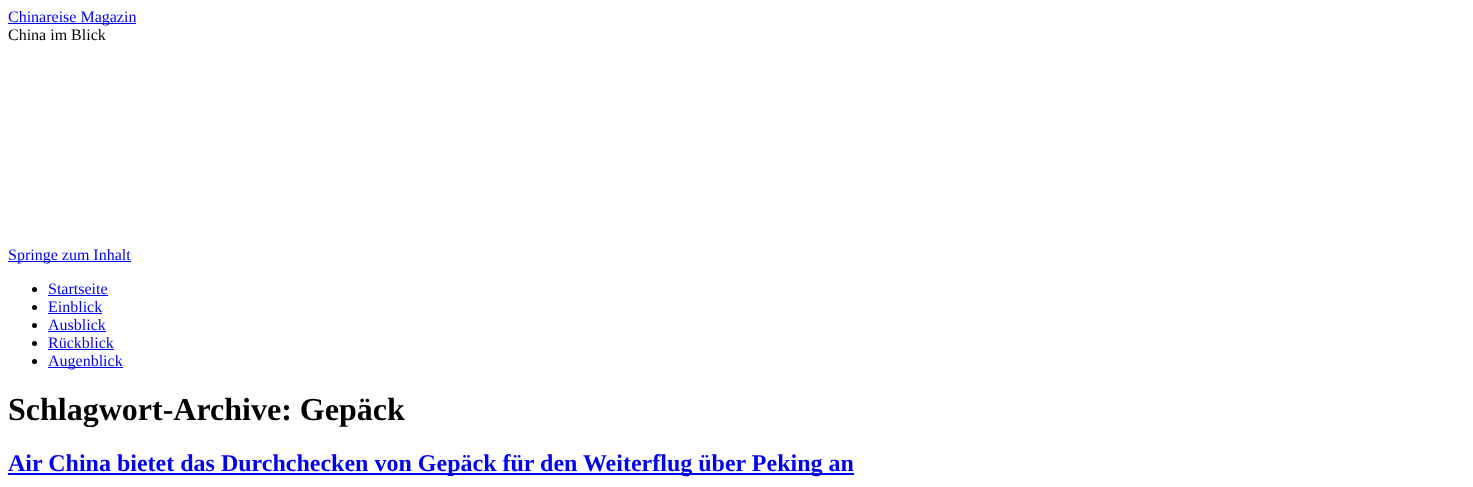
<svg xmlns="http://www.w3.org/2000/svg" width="1473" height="487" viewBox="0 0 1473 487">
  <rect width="100%" height="100%" fill="#ffffff"/>
  <rect x="8" y="23" width="128" height="1" fill="#0000ee"/>
  <text x="8" y="22" font-family="Liberation Serif" font-size="16" fill="#0000ee">Chinareise Magazin</text>
  <text x="8" y="40" font-family="Liberation Serif" font-size="16" fill="#000000">China im Blick</text>
  <rect x="8" y="261" width="123" height="1" fill="#0000ee"/>
  <text x="8" y="260" font-family="Liberation Serif" font-size="16" fill="#0000ee">Springe zum Inhalt</text>
  <circle cx="34.5" cy="289.5" r="2.5" fill="#000000"/>
  <text x="48" y="294" font-family="Liberation Serif" font-size="16" fill="#0000ee">Startseite</text>
  <rect x="48" y="295" width="60" height="1" fill="#0000ee"/>
  <circle cx="34.5" cy="307.5" r="2.5" fill="#000000"/>
  <text x="48" y="312" font-family="Liberation Serif" font-size="16" fill="#0000ee">Einblick</text>
  <rect x="48" y="313" width="54" height="1" fill="#0000ee"/>
  <circle cx="34.5" cy="325.5" r="2.5" fill="#000000"/>
  <text x="48" y="330" font-family="Liberation Serif" font-size="16" fill="#0000ee">Ausblick</text>
  <rect x="48" y="331" width="58" height="1" fill="#0000ee"/>
  <circle cx="34.5" cy="343.5" r="2.5" fill="#000000"/>
  <text x="48" y="348" font-family="Liberation Serif" font-size="16" fill="#0000ee">Rückblick</text>
  <rect x="48" y="349" width="66" height="1" fill="#0000ee"/>
  <circle cx="34.5" cy="361.5" r="2.5" fill="#000000"/>
  <rect x="48" y="367" width="75" height="1" fill="#0000ee"/>
  <text x="48" y="366" font-family="Liberation Serif" font-size="16" fill="#0000ee">Augenblick</text>
  <text x="8" y="420" font-family="Liberation Serif" font-size="32" font-weight="bold" fill="#000000">Schlagwort-Archive: Gepäck</text>
  <rect x="8" y="473" width="846" height="2" fill="#0000ee"/>
  <text x="8" y="471" font-family="Liberation Serif" font-size="24" font-weight="bold" fill="#0000ee">Air China bietet das Durchchecken von Gepäck für den Weiterflug über Peking an</text>
</svg>
